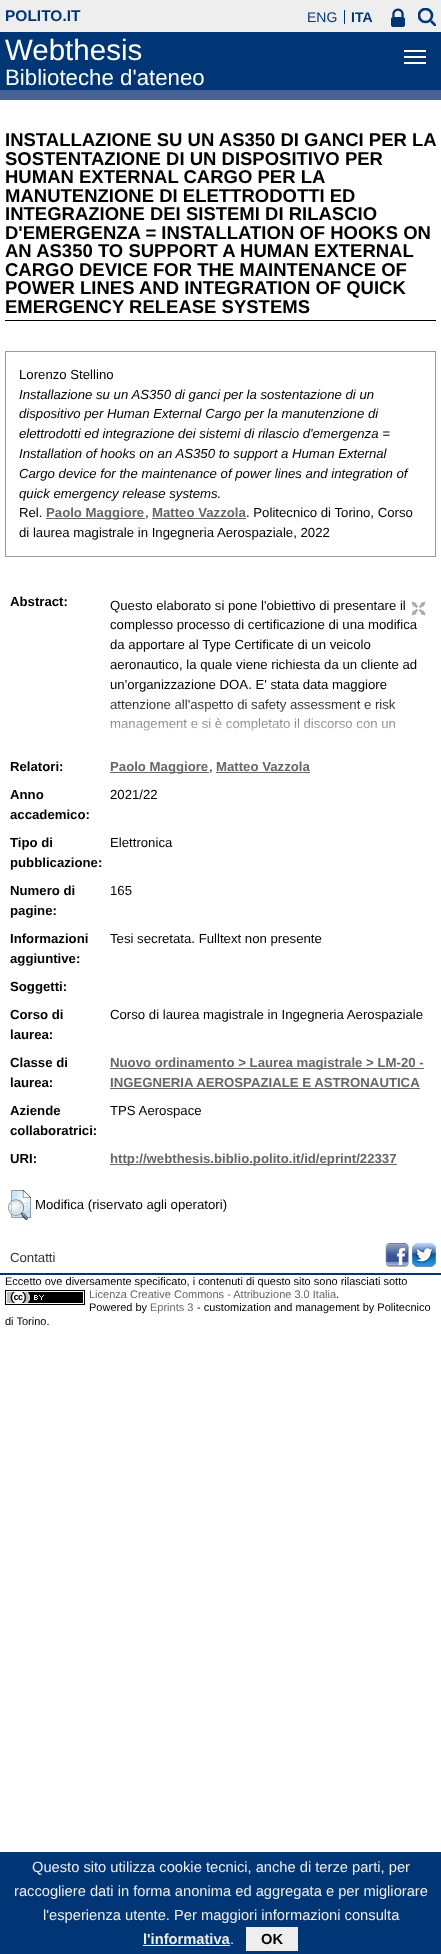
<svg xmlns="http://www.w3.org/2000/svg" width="441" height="1954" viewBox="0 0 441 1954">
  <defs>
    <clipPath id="clip1"><rect x="418" y="8" width="18" height="18"/></clipPath>
  </defs>
  <rect width="100%" height="100%" fill="#ffffff"/>
  <rect x="0" y="0" width="441" height="32" fill="#eeeeee"/>
  <text x="5" y="21" font-family="Liberation Sans" font-size="15.5" font-weight="bold" fill="#003576">POLITO.IT</text>
  <rect x="344" y="10" width="1" height="14" fill="#003576"/>
  <text x="307" y="22" font-family="Liberation Sans" font-size="14" fill="#003576">ENG</text>
  <text x="351" y="22" font-family="Liberation Sans" font-size="14" font-weight="bold" fill="#003576">ITA</text>
  <image x="391" y="8" width="14" height="19" href="img1.png"/>
  <g clip-path="url(#clip1)">
    <circle cx="425.5" cy="15.5" r="6.5" fill="none" stroke="#003576" stroke-width="2.6"/>
    <path d="M431 21L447.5 37.5" fill="none" stroke="#003576" stroke-width="2.6"/>
  </g>
  <rect x="0" y="32" width="441" height="58" fill="#003576"/>
  <text x="5" y="60" font-family="Liberation Sans" font-size="29.5" fill="#ffffff">Webthesis</text>
  <text x="5" y="85" font-family="Liberation Sans" font-size="22.25" fill="#ffffff">Biblioteche d'ateneo</text>
  <rect x="404" y="50" width="22" height="2" fill="#ffffff"/>
  <rect x="404" y="56" width="22" height="2" fill="#ffffff"/>
  <rect x="404" y="62" width="22" height="2" fill="#ffffff"/>
  <rect x="0" y="90" width="441" height="10" fill="#486293"/>
  <rect x="5" y="320" width="431" height="1" fill="#000000"/>
  <text x="5" y="146" font-family="Liberation Sans" font-size="18.5" font-weight="bold" fill="#000000">INSTALLAZIONE SU UN AS350 DI GANCI PER LA</text>
  <text x="5" y="165" font-family="Liberation Sans" font-size="18.5" font-weight="bold" fill="#000000">SOSTENTAZIONE DI UN DISPOSITIVO PER</text>
  <text x="5" y="183" font-family="Liberation Sans" font-size="18.5" font-weight="bold" fill="#000000">HUMAN EXTERNAL CARGO PER LA</text>
  <text x="5" y="202" font-family="Liberation Sans" font-size="18.5" font-weight="bold" fill="#000000">MANUTENZIONE DI ELETTRODOTTI ED</text>
  <text x="5" y="220" font-family="Liberation Sans" font-size="18.5" font-weight="bold" fill="#000000">INTEGRAZIONE DEI SISTEMI DI RILASCIO</text>
  <text x="5" y="239" font-family="Liberation Sans" font-size="18.5" font-weight="bold" fill="#000000">D'EMERGENZA = INSTALLATION OF HOOKS ON</text>
  <text x="5" y="257" font-family="Liberation Sans" font-size="18.5" font-weight="bold" fill="#000000">AN AS350 TO SUPPORT A HUMAN EXTERNAL</text>
  <text x="5" y="276" font-family="Liberation Sans" font-size="18.5" font-weight="bold" fill="#000000">CARGO DEVICE FOR THE MAINTENANCE OF</text>
  <text x="5" y="294" font-family="Liberation Sans" font-size="18.5" font-weight="bold" fill="#000000">POWER LINES AND INTEGRATION OF QUICK</text>
  <text x="5" y="313" font-family="Liberation Sans" font-size="18.5" font-weight="bold" fill="#000000">EMERGENCY RELEASE SYSTEMS</text>
  <rect x="5.5" y="351.5" width="430" height="205" fill="none" stroke="#999999"/>
  <text x="19" y="379" font-family="Liberation Sans" font-size="13.2" fill="#000000">Lorenzo Stellino</text>
  <text x="19" y="399" font-family="Liberation Sans" font-size="13.2" font-style="italic" fill="#000000">Installazione su un AS350 di ganci per la sostentazione di un</text>
  <text x="19" y="418" font-family="Liberation Sans" font-size="13.2" font-style="italic" fill="#000000">dispositivo per Human External Cargo per la manutenzione di</text>
  <text x="19" y="438" font-family="Liberation Sans" font-size="13.2" font-style="italic" fill="#000000">elettrodotti ed integrazione dei sistemi di rilascio d'emergenza =</text>
  <text x="19" y="458" font-family="Liberation Sans" font-size="13.2" font-style="italic" fill="#000000">Installation of hooks on an AS350 to support a Human External</text>
  <text x="19" y="478" font-family="Liberation Sans" font-size="13.2" font-style="italic" fill="#000000">Cargo device for the maintenance of power lines and integration of</text>
  <text x="19" y="498" font-family="Liberation Sans" font-size="13.2" font-style="italic" fill="#000000">quick emergency release systems.</text>
  <text x="19" y="517" font-family="Liberation Sans" font-size="13.2" fill="#000000">Rel.</text>
  <rect x="46" y="518" width="99" height="1" fill="#666666"/>
  <text x="46" y="517" font-family="Liberation Sans" font-size="13.2" font-weight="bold" fill="#666666">Paolo Maggiore</text>
  <text x="145" y="517" font-family="Liberation Sans" font-size="13.2" fill="#000000">,</text>
  <text x="152" y="517" font-family="Liberation Sans" font-size="13.2" font-weight="bold" fill="#666666">Matteo Vazzola</text>
  <rect x="152" y="518" width="94" height="1" fill="#666666"/>
  <text x="246" y="517" font-family="Liberation Sans" font-size="13.2" fill="#000000">. Politecnico di Torino, Corso</text>
  <text x="19" y="537" font-family="Liberation Sans" font-size="13.2" fill="#000000">di laurea magistrale in Ingegneria Aerospaziale, 2022</text>
  <text x="10" y="606" font-family="Liberation Sans" font-size="13.2" font-weight="bold" fill="#000000">Abstract:</text>
  <text x="110" y="610" font-family="Liberation Sans" font-size="13.2" fill="#000000">Questo elaborato si pone l'obiettivo di presentare il</text>
  <text x="110" y="629" font-family="Liberation Sans" font-size="13.2" fill="#000000">complesso processo di certificazione di una modifica</text>
  <text x="110" y="649" font-family="Liberation Sans" font-size="13.2" fill="#000000">da apportare al Type Certificate di un veicolo</text>
  <text x="110" y="669" font-family="Liberation Sans" font-size="13.2" fill="#000000">aeronautico, la quale viene richiesta da un cliente ad</text>
  <text x="110" y="689" font-family="Liberation Sans" font-size="13.2" fill="#000000">un'organizzazione DOA. E' stata data maggiore</text>
  <text x="110" y="709" font-family="Liberation Sans" font-size="13.2" fill="#000000">attenzione all'aspetto di safety assessment e risk</text>
  <text x="110" y="728" font-family="Liberation Sans" font-size="13.2" fill="#000000">management e si è completato il discorso con un</text>
  <image x="411" y="601" width="15" height="15" href="img2.png"/>
  <image x="111" y="699" width="314" height="47" href="img3.png"/>
  <text x="10" y="771" font-family="Liberation Sans" font-size="13.2" font-weight="bold" fill="#000000">Relatori:</text>
  <rect x="110" y="772" width="99" height="1" fill="#666666"/>
  <text x="110" y="771" font-family="Liberation Sans" font-size="13.2" font-weight="bold" fill="#666666">Paolo Maggiore</text>
  <text x="209" y="771" font-family="Liberation Sans" font-size="13.2" fill="#000000">,</text>
  <text x="216" y="771" font-family="Liberation Sans" font-size="13.2" font-weight="bold" fill="#666666">Matteo Vazzola</text>
  <rect x="216" y="772" width="94" height="1" fill="#666666"/>
  <text x="10" y="799" font-family="Liberation Sans" font-size="13.2" font-weight="bold" fill="#000000">Anno</text>
  <text x="10" y="819" font-family="Liberation Sans" font-size="13.2" font-weight="bold" fill="#000000">accademico:</text>
  <text x="110" y="799" font-family="Liberation Sans" font-size="13.2" fill="#000000">2021/22</text>
  <text x="10" y="847" font-family="Liberation Sans" font-size="13.2" font-weight="bold" fill="#000000">Tipo di</text>
  <text x="10" y="867" font-family="Liberation Sans" font-size="13.2" font-weight="bold" fill="#000000">pubblicazione:</text>
  <text x="110" y="847" font-family="Liberation Sans" font-size="13.2" fill="#000000">Elettronica</text>
  <text x="10" y="895" font-family="Liberation Sans" font-size="13.2" font-weight="bold" fill="#000000">Numero di</text>
  <text x="10" y="915" font-family="Liberation Sans" font-size="13.2" font-weight="bold" fill="#000000">pagine:</text>
  <text x="110" y="895" font-family="Liberation Sans" font-size="13.2" fill="#000000">165</text>
  <text x="10" y="943" font-family="Liberation Sans" font-size="13.2" font-weight="bold" fill="#000000">Informazioni</text>
  <text x="10" y="963" font-family="Liberation Sans" font-size="13.2" font-weight="bold" fill="#000000">aggiuntive:</text>
  <text x="110" y="943" font-family="Liberation Sans" font-size="13.2" fill="#000000">Tesi secretata. Fulltext non presente</text>
  <text x="10" y="991" font-family="Liberation Sans" font-size="13.2" font-weight="bold" fill="#000000">Soggetti:</text>
  <text x="10" y="1019" font-family="Liberation Sans" font-size="13.2" font-weight="bold" fill="#000000">Corso di</text>
  <text x="10" y="1039" font-family="Liberation Sans" font-size="13.2" font-weight="bold" fill="#000000">laurea:</text>
  <text x="110" y="1019" font-family="Liberation Sans" font-size="13.2" fill="#000000">Corso di laurea magistrale in Ingegneria Aerospaziale</text>
  <text x="10" y="1067" font-family="Liberation Sans" font-size="13.2" font-weight="bold" fill="#000000">Classe di</text>
  <text x="10" y="1087" font-family="Liberation Sans" font-size="13.2" font-weight="bold" fill="#000000">laurea:</text>
  <rect x="110" y="1068" width="314" height="1" fill="#666666"/>
  <text x="110" y="1067" font-family="Liberation Sans" font-size="13.2" font-weight="bold" fill="#666666">Nuovo ordinamento &gt; Laurea magistrale &gt; LM-20 -</text>
  <text x="110" y="1087" font-family="Liberation Sans" font-size="13.2" font-weight="bold" fill="#666666">INGEGNERIA AEROSPAZIALE E ASTRONAUTICA</text>
  <rect x="110" y="1088" width="310" height="1" fill="#666666"/>
  <text x="10" y="1115" font-family="Liberation Sans" font-size="13.2" font-weight="bold" fill="#000000">Aziende</text>
  <text x="10" y="1135" font-family="Liberation Sans" font-size="13.2" font-weight="bold" fill="#000000">collaboratrici:</text>
  <text x="110" y="1115" font-family="Liberation Sans" font-size="13.2" fill="#000000">TPS Aerospace</text>
  <text x="10" y="1163" font-family="Liberation Sans" font-size="13.2" font-weight="bold" fill="#000000">URI:</text>
  <rect x="110" y="1164" width="287" height="1" fill="#666666"/>
  <text x="110" y="1163" font-family="Liberation Sans" font-size="13.2" font-weight="bold" fill="#666666">http://webthesis.biblio.polito.it/id/eprint/22337</text>
  <image x="8" y="1190" width="23" height="30" href="img4.png"/>
  <text x="35" y="1209" font-family="Liberation Sans" font-size="13.2" fill="#000000">Modifica (riservato agli operatori)</text>
  <text x="10" y="1262" font-family="Liberation Sans" font-size="13.2" fill="#333333">Contatti</text>
  <image x="385" y="1243" width="24" height="24" href="img5.png"/>
  <image x="412" y="1243" width="24" height="24" href="img6.png"/>
  <rect x="0" y="1273" width="441" height="2" fill="#003576"/>
  <text x="5" y="1285" font-family="Liberation Sans" font-size="11" fill="#000000">Eccetto ove diversamente specificato, i contenuti di questo sito sono rilasciati sotto</text>
  <image x="5" y="1290" width="80" height="15" href="img7.png"/>
  <text x="89" y="1298" font-family="Liberation Sans" font-size="11" fill="#666666">Licenza Creative Commons - Attribuzione 3.0 Italia</text>
  <text x="336" y="1298" font-family="Liberation Sans" font-size="11" fill="#000000">.</text>
  <text x="89" y="1311" font-family="Liberation Sans" font-size="11" fill="#000000">Powered by</text>
  <text x="150" y="1311" font-family="Liberation Sans" font-size="11" fill="#666666">Eprints 3</text>
  <text x="197" y="1311" font-family="Liberation Sans" font-size="11" fill="#000000">- customization and management by Politecnico</text>
  <text x="5" y="1325" font-family="Liberation Sans" font-size="11" fill="#000000">di Torino.</text>
  <rect x="0" y="1852" width="441" height="102" fill="#003576"/>
  <text x="32" y="1872" font-family="Liberation Sans" font-size="14.7" fill="#eeeeee">Questo sito utilizza cookie tecnici, anche di terze parti, per</text>
  <text x="14" y="1896" font-family="Liberation Sans" font-size="14.7" fill="#eeeeee">raccogliere dati in forma anonima ed aggregata e per migliorare</text>
  <text x="43" y="1920" font-family="Liberation Sans" font-size="14.7" fill="#eeeeee">l'esperienza utente. Per maggiori informazioni consulta</text>
  <text x="143" y="1944" font-family="Liberation Sans" font-size="14.7" font-weight="bold" fill="#eeeeee">l'informativa</text>
  <rect x="143" y="1945" width="87" height="1" fill="#eeeeee"/>
  <text x="230" y="1944" font-family="Liberation Sans" font-size="14.7" fill="#eeeeee">.</text>
  <rect x="246" y="1927" width="52" height="24" fill="#eeeeee"/>
  <text x="261" y="1944" font-family="Liberation Sans" font-size="14.7" font-weight="bold" fill="#000000">OK</text>
</svg>
